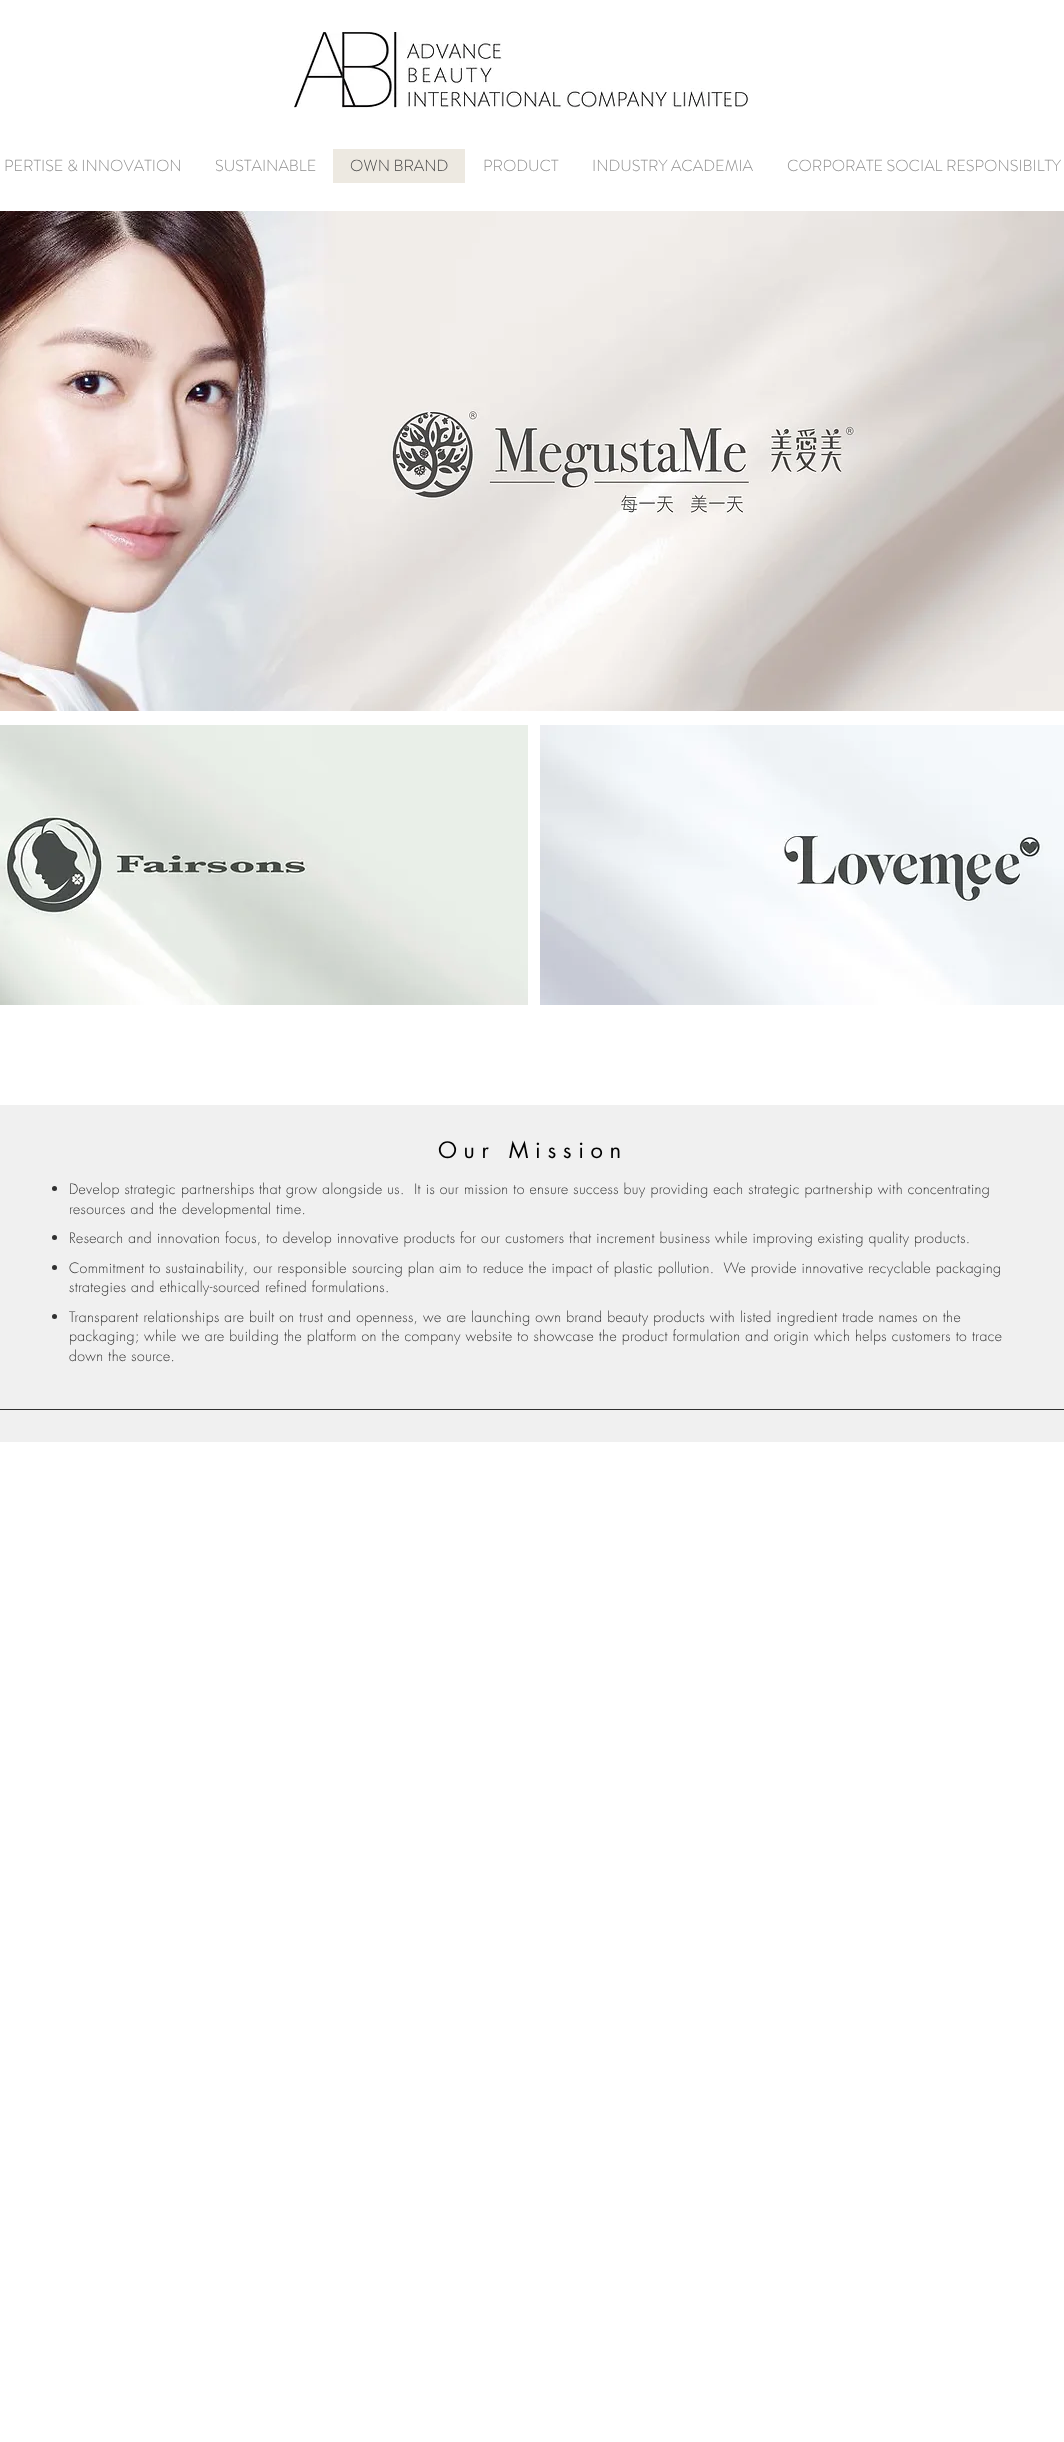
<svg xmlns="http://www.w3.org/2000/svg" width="1064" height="2442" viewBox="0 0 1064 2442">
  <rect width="100%" height="100%" fill="#ffffff"/>
  <image x="294" y="32" width="456" height="76" href="img1.png"/>
  <text x="4" y="171" font-family="'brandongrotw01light'" font-size="16" font-weight="300" fill="#909090">PERTISE &amp; INNOVATION</text>
  <text x="215" y="171" font-family="'brandongrotw01light'" font-size="16" font-weight="300" fill="#909090">SUSTAINABLE</text>
  <rect x="333" y="149" width="132" height="34" fill="#ede9e1"/>
  <text x="350" y="171" font-family="'brandongrotw01light'" font-size="16" font-weight="300" fill="#444444">OWN BRAND</text>
  <text x="483" y="171" font-family="'brandongrotw01light'" font-size="16" font-weight="300" fill="#909090">PRODUCT</text>
  <text x="592" y="171" font-family="'brandongrotw01light'" font-size="16" font-weight="300" fill="#909090">INDUSTRY ACADEMIA</text>
  <text x="787" y="171" font-family="'brandongrotw01light'" font-size="16" font-weight="300" fill="#909090">CORPORATE SOCIAL RESPONSIBILTY</text>
  <image x="0" y="211" width="1064" height="500" href="img2.png"/>
  <image x="0" y="725" width="528" height="280" href="img3.png"/>
  <image x="540" y="725" width="524" height="280" href="img4.png"/>
  <rect x="0" y="1105" width="1064" height="304" fill="#f0f0f0"/>
  <text x="438" y="1158" font-family="futura" font-size="22" letter-spacing="6.6" fill="#000000">Our Mission</text>
  <circle cx="54.5" cy="1188.5" r="2.5" fill="#303030"/>
  <text x="69" y="1194" font-family="futura" font-size="14" font-weight="300" letter-spacing="0.42" fill="#303030">Develop strategic</text>
  <text x="181" y="1194" font-family="futura" font-size="14" font-weight="300" letter-spacing="0.39" fill="#303030">partnerships</text>
  <text x="259" y="1194" font-family="futura" font-size="14" font-weight="300" letter-spacing="0.42" fill="#303030" xml:space="preserve">that grow alongside us.  It is our mission to ensure success buy providing each strategic partnership with concentrating</text>
  <text x="69" y="1214" font-family="futura" font-size="14" font-weight="300" letter-spacing="0.42" fill="#303030">resources and the developmental time.</text>
  <circle cx="54.5" cy="1237.5" r="2.5" fill="#303030"/>
  <text x="69" y="1243" font-family="futura" font-size="14" font-weight="300" letter-spacing="0.42" fill="#303030">Research and innovation focus, to develop innovative products for our customers that increment business while improving existing quality products.</text>
  <circle cx="54.5" cy="1267.5" r="2.5" fill="#303030"/>
  <text x="69" y="1273" font-family="futura" font-size="14" font-weight="300" letter-spacing="0.42" fill="#303030">Commitment to sustainability, our responsible</text>
  <text x="352" y="1273" font-family="futura" font-size="14" font-weight="300" letter-spacing="0.39" fill="#303030" xml:space="preserve">sourcing plan aim to reduce the impact of plastic pollution.  We provide innovative recyclable packaging</text>
  <text x="69" y="1292" font-family="futura" font-size="14" font-weight="300" letter-spacing="0.39" fill="#303030">strategies and ethically-sourced</text>
  <text x="265" y="1292" font-family="futura" font-size="14" font-weight="300" letter-spacing="0.4" fill="#303030">refined formulations.</text>
  <circle cx="54.5" cy="1316.5" r="2.5" fill="#303030"/>
  <text x="69" y="1322" font-family="futura" font-size="14" font-weight="300" letter-spacing="0.42" fill="#303030">Transparent relationships are built on trust and openness, we are launching own brand beauty products with listed ingredient trade names on the</text>
  <text x="69" y="1341" font-family="futura" font-size="14" font-weight="300" letter-spacing="0.42" fill="#303030">packaging; while we are building the platform on the company website to showcase the product formulation and origin which helps customers to trace</text>
  <text x="69" y="1361" font-family="futura" font-size="14" font-weight="300" letter-spacing="0.42" fill="#303030">down the source.</text>
  <rect x="0" y="1410" width="1064" height="32" fill="#f0f0f0"/>
  <rect x="0" y="1409" width="1064" height="1" fill="#303030"/>
</svg>
